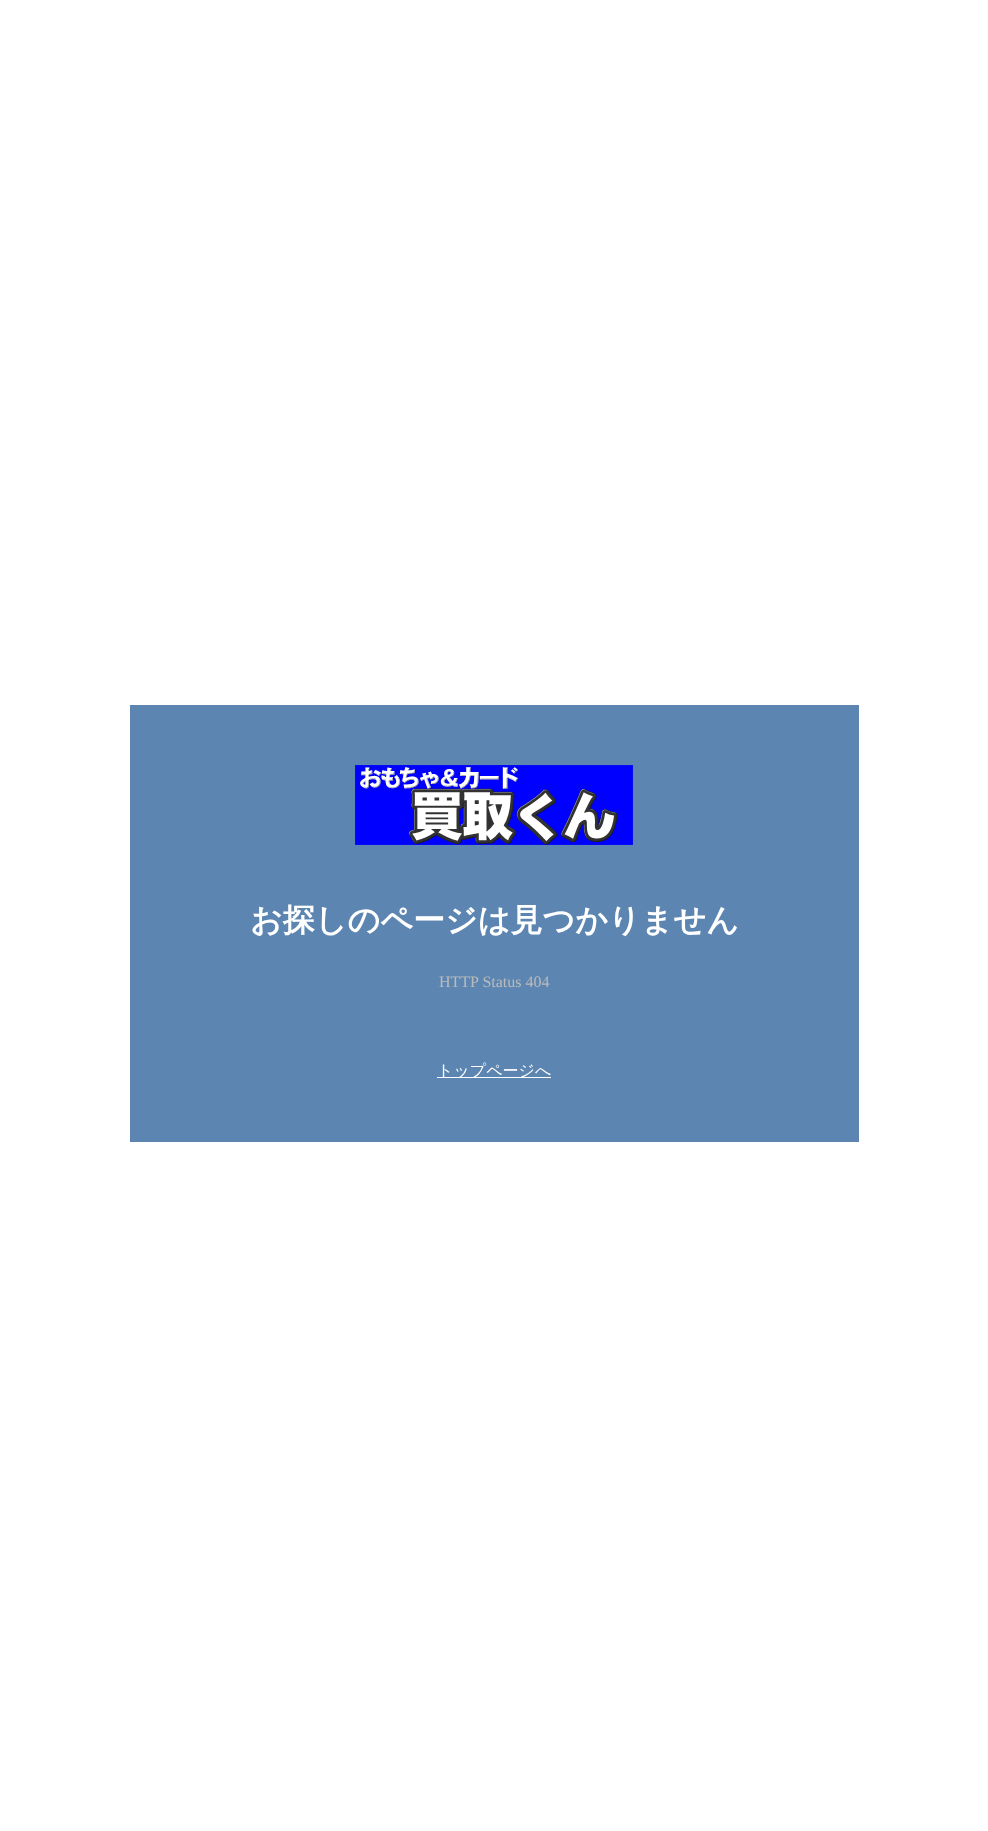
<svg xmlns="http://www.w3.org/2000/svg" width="988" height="1831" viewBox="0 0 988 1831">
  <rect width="100%" height="100%" fill="#ffffff"/>
  <rect x="130" y="705" width="729" height="437" fill="#5c86b1"/>
  <image x="355" y="765" width="278" height="80" href="img1.png"/>
  <text x="250" y="931" font-family="WenQuanYi Zen Hei" font-size="32" font-weight="bold" fill="#ffffff">お探しのページは見つかりません</text>
  <text x="439" y="987" font-family="Liberation Serif" font-size="16" fill="#bbbbbb">HTTP Status 404</text>
  <rect x="437" y="1077" width="114" height="1" fill="#ffffff"/>
  <text x="437" y="1076" font-family="WenQuanYi Zen Hei" font-size="16" font-weight="500" fill="#ffffff">トップページへ</text>
</svg>
